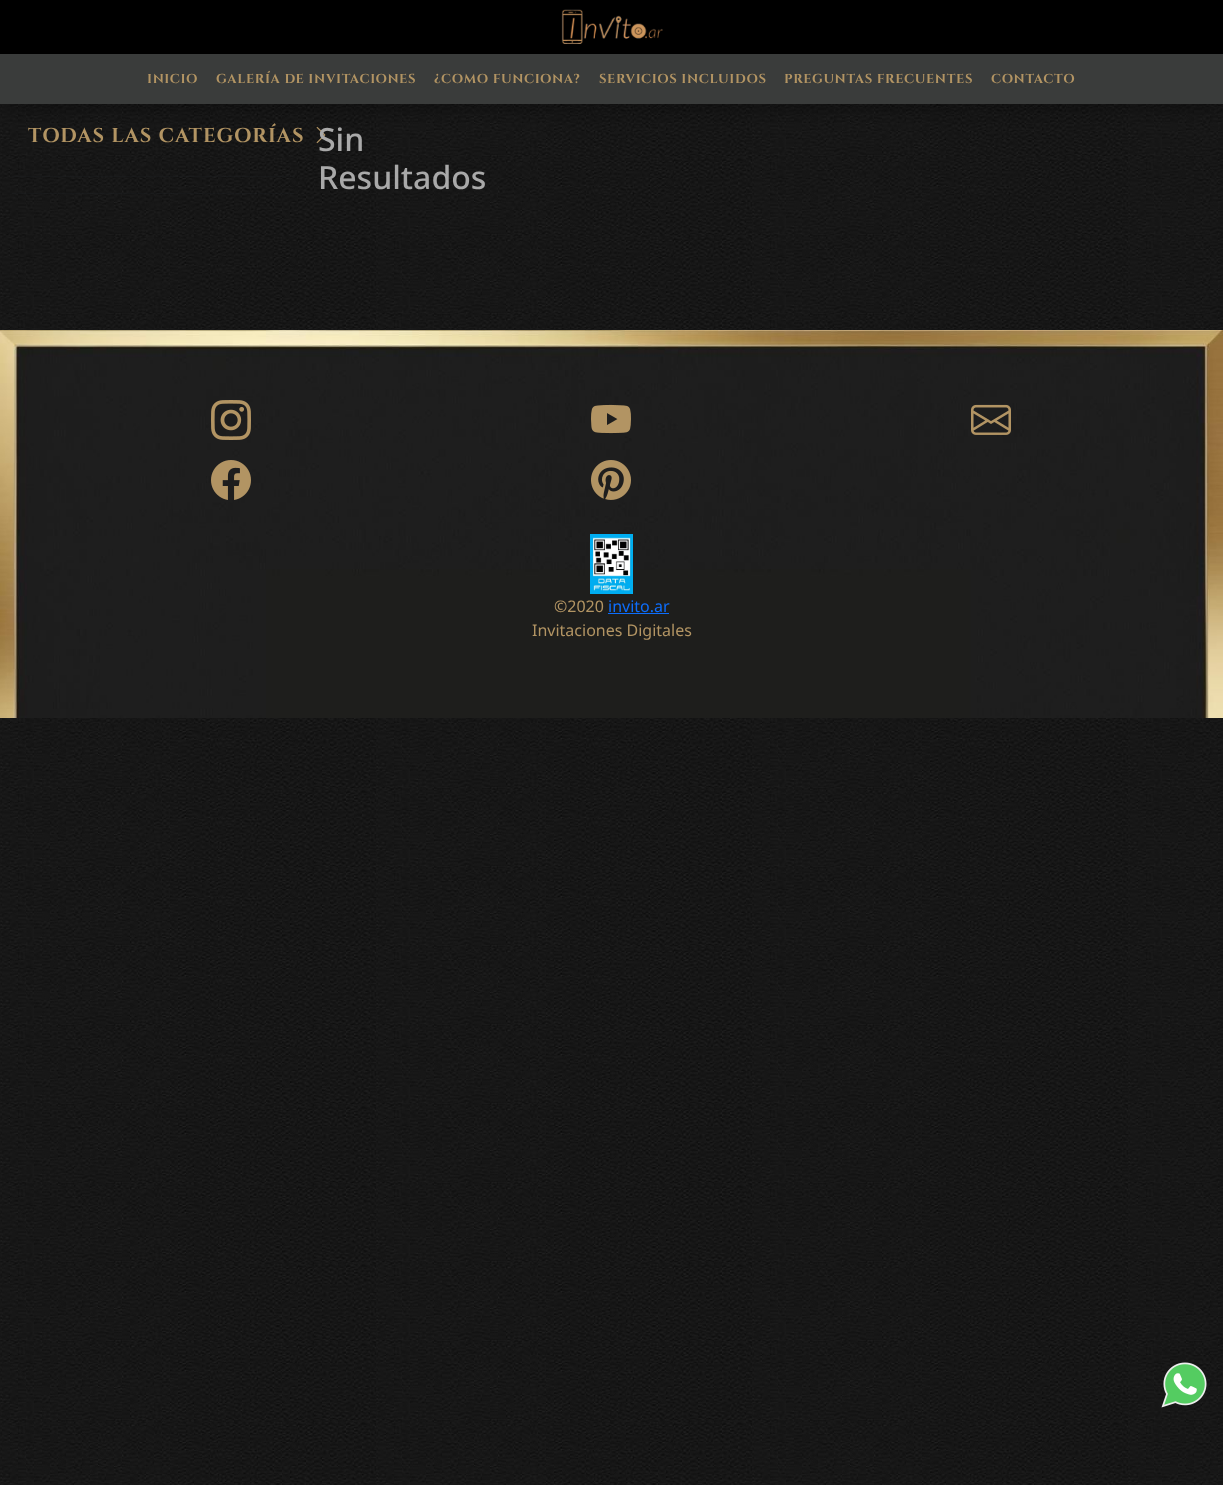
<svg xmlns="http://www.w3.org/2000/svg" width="1223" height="1485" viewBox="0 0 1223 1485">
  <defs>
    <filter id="blur1" x="-50%" y="-200%" width="200%" height="500%"><feGaussianBlur stdDeviation="5"/></filter>
    <filter id="blur2" x="-50%" y="-200%" width="200%" height="500%"><feGaussianBlur stdDeviation="9.5"/></filter>
  </defs>
  <rect width="100%" height="100%" fill="#ffffff"/>
  <image x="0" y="104" width="1223" height="1381" href="img1.png"/>
  <rect x="0" y="10" width="1223" height="100" fill="#000000" fill-opacity="0.1" filter="url(#blur1)"/>
  <image x="316" y="126" width="10" height="18" href="img3.png"/>
  <rect x="0" y="14" width="1223" height="100" fill="#000000" fill-opacity="0.12" filter="url(#blur2)"/>
  <rect x="0" y="0" width="1223" height="54" fill="#000000"/>
  <image x="561" y="9" width="102" height="35" href="img2.png"/>
  <rect x="0" y="54" width="1223" height="50" fill="#3a3c3b"/>
  <text x="147" y="83" font-family="Cinzel" font-size="13" font-weight="bold" letter-spacing="0.65" fill="#b29463">INICIO</text>
  <text x="216" y="83" font-family="Cinzel" font-size="13" font-weight="bold" letter-spacing="0.65" fill="#b29463">GALERÍA DE INVITACIONES</text>
  <text x="434" y="83" font-family="Cinzel" font-size="13" font-weight="bold" letter-spacing="0.65" fill="#b29463">¿COMO FUNCIONA?</text>
  <text x="599" y="83" font-family="Cinzel" font-size="13" font-weight="bold" letter-spacing="0.65" fill="#b29463">SERVICIOS INCLUIDOS</text>
  <text x="784" y="83" font-family="Cinzel" font-size="13" font-weight="bold" letter-spacing="0.65" fill="#b29463">PREGUNTAS FRECUENTES</text>
  <text x="991" y="83" font-family="Cinzel" font-size="13" font-weight="bold" letter-spacing="0.65" fill="#b29463">CONTACTO</text>
  <text x="28" y="142" font-family="Cinzel" font-size="20" font-weight="bold" letter-spacing="1" fill="#b29463">TODAS LAS CATEGORÍAS</text>
  <rect x="12" y="176" width="282" height="1" fill="#212529" fill-opacity="0.25"/>
  <rect x="12" y="193" width="282" height="1" fill="#212529" fill-opacity="0.25"/>
  <text x="318" y="151" font-family="Noto Sans" font-size="32" font-weight="500" fill="#a9a9a9">Sin</text>
  <text x="318" y="189" font-family="Noto Sans" font-size="32" font-weight="500" fill="#a9a9a9">Resultados</text>
  <image x="0" y="330" width="1223" height="388" href="img4.png"/>
  <image x="211" y="400" width="40" height="40" href="img5.png"/>
  <image x="211" y="460" width="40" height="40" href="img6.png"/>
  <image x="591" y="404" width="40" height="30" href="img7.png"/>
  <image x="591" y="460" width="40" height="40" href="img8.png"/>
  <image x="971" y="404" width="40" height="31" href="img9.png"/>
  <image x="590" y="534" width="43" height="60" href="img10.png"/>
  <text x="554" y="612" font-family="Noto Sans" font-size="16" fill="#b29463">©2020</text>
  <text x="608" y="612" font-family="Noto Sans" font-size="16" fill="#0d6efd">invito.ar</text>
  <rect x="608" y="613" width="61" height="1" fill="#0d6efd"/>
  <text x="532" y="636" font-family="Noto Sans" font-size="16" fill="#b29463">Invitaciones Digitales</text>
  <image x="1161" y="1362" width="46" height="46" href="img11.png"/>
</svg>
